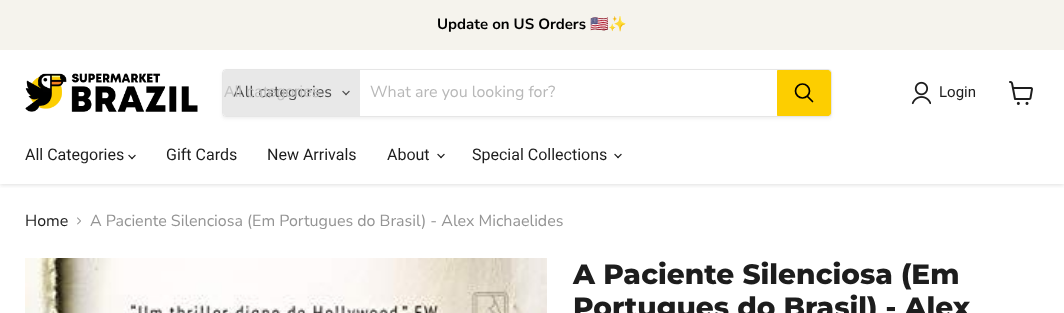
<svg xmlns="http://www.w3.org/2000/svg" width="1064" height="313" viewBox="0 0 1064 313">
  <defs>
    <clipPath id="clip1"><rect x="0" y="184" width="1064" height="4"/></clipPath>
    <filter id="blur1" x="-50%" y="-200%" width="200%" height="500%"><feGaussianBlur stdDeviation="2"/></filter>
    <clipPath id="clip2"><path d="M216 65H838V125H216ZM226 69H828C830 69 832 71 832 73V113C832 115 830 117 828 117H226C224 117 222 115 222 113V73C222 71 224 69 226 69Z" clip-rule="evenodd"/></clipPath>
    <filter id="blur2" x="-50%" y="-200%" width="200%" height="500%"><feGaussianBlur stdDeviation="1.5"/></filter>
  </defs>
  <rect width="100%" height="100%" fill="#ffffff"/>
  <g clip-path="url(#clip1)">
    <rect x="0" y="51" width="1064" height="134" fill="#808080" fill-opacity="0.25" filter="url(#blur1)"/>
  </g>
  <rect x="0" y="0" width="1064" height="50" fill="#f5f3ed"/>
  <text x="437" y="29" font-family="Nunito Sans" font-size="15" font-weight="bold" fill="#000000">Update on US Orders</text>
  <text x="590" y="29" font-family="Noto Color Emoji" font-size="15" font-weight="bold" fill="#000000">🇺🇸✨</text>
  <image x="25" y="73" width="173" height="39" href="img1.png"/>
  <g clip-path="url(#clip2)">
    <rect x="222" y="71" width="610" height="48" rx="4" fill="#808080" fill-opacity="0.11" filter="url(#blur2)"/>
  </g>
  <rect x="222.5" y="69.5" width="609" height="47" rx="3.5" fill="none" stroke="#808080" stroke-opacity="0.2"/>
  <path d="M226 70H360V116H226C224.5 116 223 114.5 223 113V73C223 71.5 224.5 70 226 70Z" fill="#e8e8e8"/>
  <text x="233" y="97" font-family="Nunito Sans" font-size="16" fill="#4d4d4d">All categories</text>
  <text x="224" y="97" font-family="Liberation Sans" font-size="16" fill="#c4c4c4">All categories</text>
  <image x="342" y="90" width="8" height="6" href="img2.png"/>
  <text x="370" y="97" font-family="Nunito Sans" font-size="16" fill="#b8b8b8">What are you looking for?</text>
  <path d="M777.5 70.5H828C829.5 70.5 830.5 71.5 830.5 73V113C830.5 114.5 829.5 115.5 828 115.5H777.5Z" fill="#fdce00" stroke="#fdce00"/>
  <path d="M812.5 101.5L807.5 96.5" fill="none" stroke="#000000" stroke-width="1.7" stroke-linecap="round"/>
  <circle cx="802.5" cy="91" r="7" fill="none" stroke="#000000" stroke-width="1.7"/>
  <image x="911" y="81" width="20" height="24" href="img3.png"/>
  <text x="939" y="97" font-family="Roboto" font-size="15" fill="#1d1d1d">Login</text>
  <image x="1009" y="81" width="24" height="24" href="img4.png"/>
  <text x="25" y="160" font-family="Roboto" font-size="16" fill="#1d1d1d">All Categories</text>
  <image x="128" y="154" width="8" height="6" href="img5.png"/>
  <text x="166" y="160" font-family="Roboto" font-size="16" fill="#1d1d1d">Gift Cards</text>
  <text x="267" y="160" font-family="Roboto" font-size="16" fill="#1d1d1d">New Arrivals</text>
  <text x="387" y="160" font-family="Roboto" font-size="16" fill="#1d1d1d">About</text>
  <image x="437" y="153" width="8" height="6" href="img5.png"/>
  <text x="472" y="160" font-family="Roboto" font-size="16" fill="#1d1d1d">Special Collections</text>
  <image x="614" y="153" width="8" height="6" href="img5.png"/>
  <text x="25" y="226" font-family="Nunito Sans" font-size="16" fill="#1d1d1d">Home</text>
  <image x="77" y="217" width="4" height="8" href="img6.png"/>
  <text x="90" y="226" font-family="Nunito Sans" font-size="16" fill="#949494">A Paciente Silenciosa (Em Portugues do Brasil) - Alex Michaelides</text>
  <image x="25" y="258" width="522" height="55" href="img7.png"/>
  <text x="573" y="284" font-family="Montserrat" font-size="28" font-weight="800" fill="#1d1d1d">A Paciente Silenciosa (Em</text>
  <text x="573" y="317" font-family="Montserrat" font-size="28" font-weight="800" fill="#1d1d1d">Portugues do Brasil) - Alex</text>
</svg>
